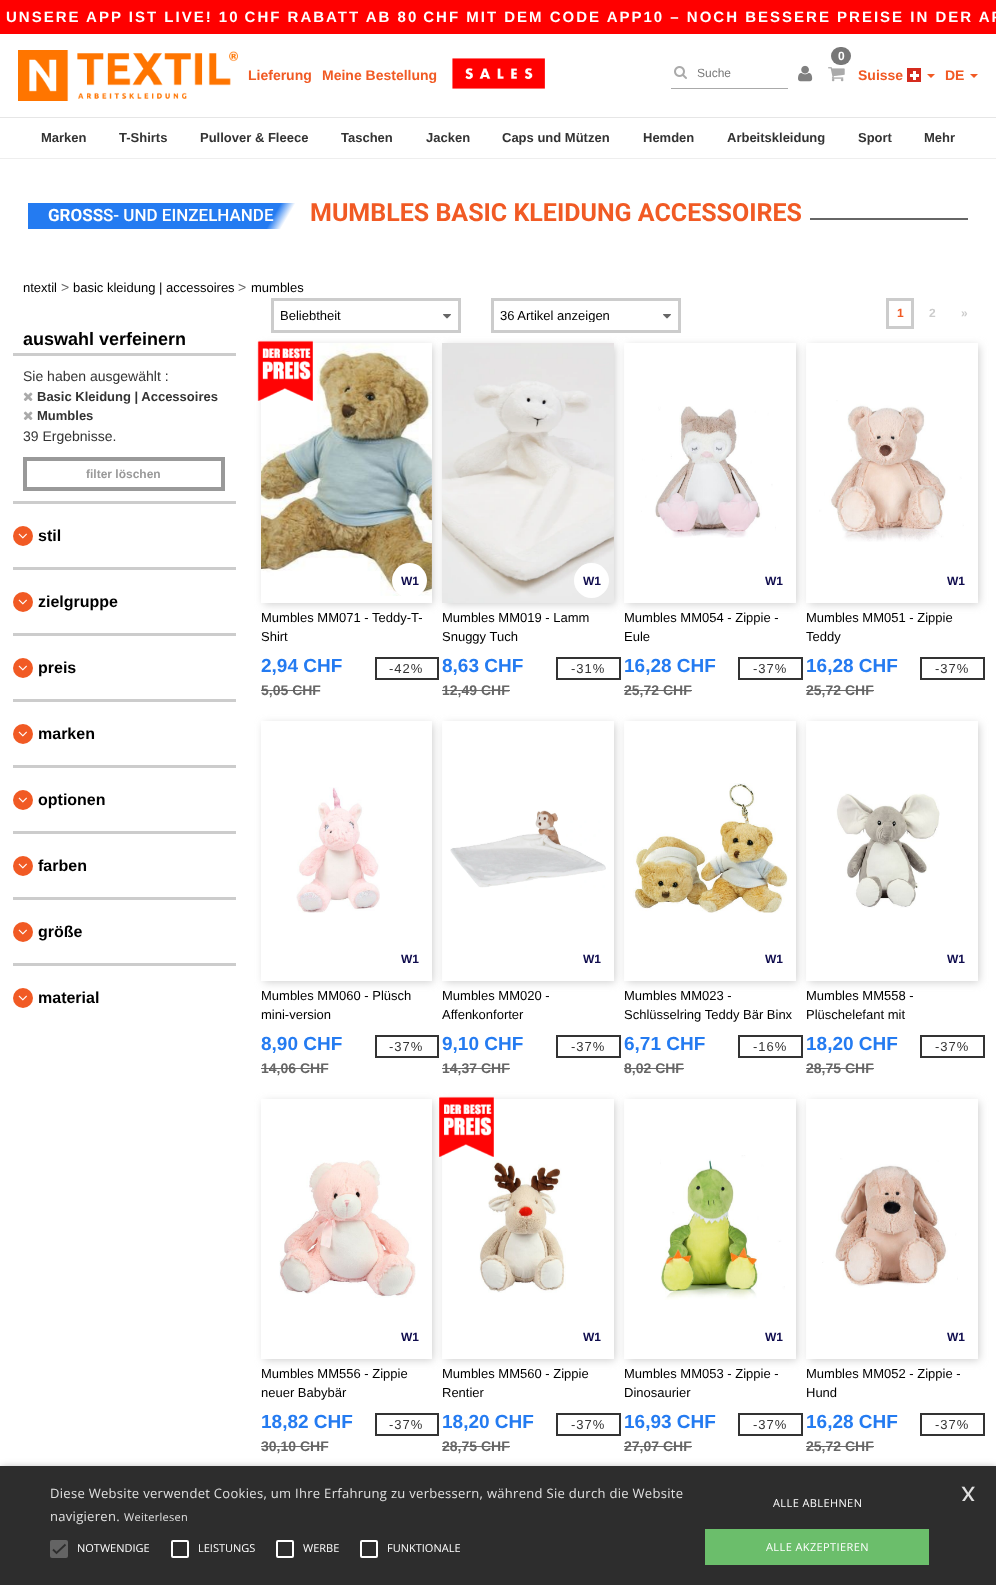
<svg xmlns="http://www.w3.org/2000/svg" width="996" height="1585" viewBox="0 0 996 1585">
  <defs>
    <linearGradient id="g1" gradientUnits="userSpaceOnUse" x1="275" y1="279" x2="57" y2="153"><stop offset="0.08" stop-color="#ffffff"/><stop offset="0.13" stop-color="#247bf1"/></linearGradient>
    <clipPath id="clip1"><rect x="500" y="309" width="153" height="13"/></clipPath>
    <clipPath id="clip2"><path d="M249 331H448V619H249ZM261 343H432V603H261Z" clip-rule="evenodd"/></clipPath>
    <filter id="blur1" x="-50%" y="-200%" width="200%" height="500%"><feGaussianBlur stdDeviation="4.5"/></filter>
    <clipPath id="clip3"><path d="M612 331H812V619H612ZM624 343H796V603H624Z" clip-rule="evenodd"/></clipPath>
    <clipPath id="clip4"><path d="M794 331H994V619H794ZM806 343H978V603H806Z" clip-rule="evenodd"/></clipPath>
    <clipPath id="clip5"><path d="M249 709H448V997H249ZM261 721H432V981H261Z" clip-rule="evenodd"/></clipPath>
    <clipPath id="clip6"><path d="M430 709H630V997H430ZM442 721H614V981H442Z" clip-rule="evenodd"/></clipPath>
    <clipPath id="clip7"><path d="M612 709H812V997H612ZM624 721H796V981H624Z" clip-rule="evenodd"/></clipPath>
    <clipPath id="clip8"><path d="M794 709H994V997H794ZM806 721H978V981H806Z" clip-rule="evenodd"/></clipPath>
    <clipPath id="clip9"><path d="M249 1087H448V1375H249ZM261 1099H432V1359H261Z" clip-rule="evenodd"/></clipPath>
    <clipPath id="clip10"><path d="M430 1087H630V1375H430ZM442 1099H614V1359H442Z" clip-rule="evenodd"/></clipPath>
    <clipPath id="clip11"><path d="M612 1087H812V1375H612ZM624 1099H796V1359H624Z" clip-rule="evenodd"/></clipPath>
    <clipPath id="clip12"><path d="M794 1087H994V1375H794ZM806 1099H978V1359H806Z" clip-rule="evenodd"/></clipPath>
    <filter id="blur2" x="-50%" y="-200%" width="200%" height="500%"><feGaussianBlur stdDeviation="4"/></filter>
    <clipPath id="clip13"><rect x="961" y="1486" width="15" height="15"/></clipPath>
  </defs>
  <rect width="100%" height="100%" fill="#ffffff"/>
  <rect x="0" y="0" width="996" height="34" fill="#ff0000"/>
  <text x="6" y="22" font-family="Liberation Sans" font-size="15" font-weight="bold" letter-spacing="2" fill="#ffffff">UNSERE APP IST LIVE! 10 CHF RABATT AB 80 CHF MIT DEM CODE APP10 – NOCH BESSERE PREISE IN DER AP</text>
  <rect x="0" y="117" width="996" height="1" fill="#e6e6e6"/>
  <image x="18" y="50" width="220" height="51" href="img1.png"/>
  <text x="248" y="80" font-family="Liberation Sans" font-size="14" font-weight="bold" fill="#f15a24">Lieferung</text>
  <text x="322" y="80" font-family="Liberation Sans" font-size="14" font-weight="bold" fill="#f15a24">Meine Bestellung</text>
  <image x="452" y="58" width="93" height="31" href="img2.png"/>
  <rect x="831" y="47" width="20" height="18" rx="9" fill="#777777"/>
  <text x="838" y="60" font-family="Liberation Sans" font-size="12" font-weight="bold" fill="#ffffff">0</text>
  <image x="828" y="67" width="17" height="15" href="img3.png"/>
  <rect x="671" y="88" width="117" height="1" fill="#aaaaaa"/>
  <image x="674" y="66" width="13" height="13" href="img4.png"/>
  <text x="697" y="77" font-family="Liberation Sans" font-size="12" fill="#787878">Suche</text>
  <image x="798" y="65" width="15" height="17" href="img5.png"/>
  <text x="858" y="80" font-family="Liberation Sans" font-size="14" font-weight="bold" fill="#f15a24">Suisse</text>
  <rect x="907" y="68" width="14" height="14" fill="#d52b1e"/>
  <rect x="910" y="74" width="9" height="3" fill="#ffffff"/>
  <rect x="913" y="71" width="3" height="9" fill="#ffffff"/>
  <path d="M927 74H935L931 78Z" fill="#f15a24"/>
  <text x="945" y="80" font-family="Liberation Sans" font-size="14" font-weight="bold" fill="#f15a24">DE</text>
  <path d="M970 74H978L974 78Z" fill="#f15a24"/>
  <rect x="0" y="158" width="996" height="1" fill="#eeeeee"/>
  <text x="41" y="142" font-family="Liberation Sans" font-size="13" font-weight="bold" fill="#333333">Marken</text>
  <text x="119" y="142" font-family="Liberation Sans" font-size="13" font-weight="bold" fill="#333333">T-Shirts</text>
  <text x="200" y="142" font-family="Liberation Sans" font-size="13" font-weight="bold" fill="#333333">Pullover &amp; Fleece</text>
  <text x="341" y="142" font-family="Liberation Sans" font-size="13" font-weight="bold" fill="#333333">Taschen</text>
  <text x="426" y="142" font-family="Liberation Sans" font-size="13" font-weight="bold" fill="#333333">Jacken</text>
  <text x="502" y="142" font-family="Liberation Sans" font-size="13" font-weight="bold" fill="#333333">Caps und Mützen</text>
  <text x="643" y="142" font-family="Liberation Sans" font-size="13" font-weight="bold" fill="#333333">Hemden</text>
  <text x="727" y="142" font-family="Liberation Sans" font-size="13" font-weight="bold" fill="#333333">Arbeitskleidung</text>
  <text x="858" y="142" font-family="Liberation Sans" font-size="13" font-weight="bold" fill="#333333">Sport</text>
  <text x="924" y="142" font-family="Liberation Sans" font-size="13" font-weight="bold" fill="#333333">Mehr</text>
  <rect x="28" y="203" width="267" height="26" fill="url(#g1)"/>
  <text x="48" y="221" font-family="Roboto" font-size="17" font-weight="bold" fill="#ffffff">GROSS</text>
  <text x="103" y="221" font-family="Roboto" font-size="17" font-weight="500" fill="#ffffff">S- UND EINZELHANDE</text>
  <text x="310" y="221" font-family="Roboto" font-size="25" font-weight="bold" fill="#f15a24">MUMBLES BASIC KLEIDUNG ACCESSOIRES</text>
  <rect x="810" y="218" width="158" height="2" fill="#666666"/>
  <text x="23" y="292" font-family="Liberation Sans" font-size="13" fill="#000000">ntextil</text>
  <text x="61" y="292" font-family="Liberation Sans" font-size="14" fill="#666666">&gt;</text>
  <text x="73" y="292" font-family="Liberation Sans" font-size="13" fill="#000000">basic kleidung | accessoires</text>
  <text x="238" y="292" font-family="Liberation Sans" font-size="14" fill="#666666">&gt;</text>
  <text x="251" y="292" font-family="Liberation Sans" font-size="13" fill="#000000">mumbles</text>
  <rect x="13" y="353" width="223" height="3" fill="#cccccc"/>
  <text x="23" y="345" font-family="Liberation Sans" font-size="18" font-weight="bold" fill="#000000">auswahl verfeinern</text>
  <text x="23" y="381" font-family="Liberation Sans" font-size="14" fill="#333333">Sie haben ausgewählt :</text>
  <image x="23" y="392" width="10" height="9" href="img6.png"/>
  <text x="37" y="401" font-family="Liberation Sans" font-size="13" font-weight="bold" fill="#333333">Basic Kleidung | Accessoires</text>
  <image x="23" y="411" width="10" height="9" href="img6.png"/>
  <text x="37" y="420" font-family="Liberation Sans" font-size="13" font-weight="bold" fill="#333333">Mumbles</text>
  <text x="23" y="441" font-family="Liberation Sans" font-size="14" fill="#333333">39 Ergebnisse.</text>
  <rect x="25" y="459" width="198" height="30" fill="none" stroke="#999999" stroke-width="4"/>
  <text x="86" y="478" font-family="Liberation Sans" font-size="12" font-weight="bold" fill="#999999">filter löschen</text>
  <rect x="13" y="501" width="223" height="3" fill="#cccccc"/>
  <circle cx="23" cy="536" r="10" fill="#f15a24"/>
  <image x="18" y="533" width="9" height="6" href="img7.png"/>
  <text x="38" y="541" font-family="Liberation Sans" font-size="16" font-weight="bold" fill="#000000">stil</text>
  <rect x="13" y="567" width="223" height="3" fill="#cccccc"/>
  <circle cx="23" cy="602" r="10" fill="#f15a24"/>
  <image x="18" y="599" width="9" height="6" href="img7.png"/>
  <text x="38" y="607" font-family="Liberation Sans" font-size="16" font-weight="bold" fill="#000000">zielgruppe</text>
  <rect x="13" y="633" width="223" height="3" fill="#cccccc"/>
  <circle cx="23" cy="668" r="10" fill="#f15a24"/>
  <image x="18" y="665" width="9" height="6" href="img7.png"/>
  <text x="38" y="673" font-family="Liberation Sans" font-size="16" font-weight="bold" fill="#000000">preis</text>
  <rect x="13" y="699" width="223" height="3" fill="#cccccc"/>
  <circle cx="23" cy="734" r="10" fill="#f15a24"/>
  <image x="18" y="731" width="9" height="6" href="img7.png"/>
  <text x="38" y="739" font-family="Liberation Sans" font-size="16" font-weight="bold" fill="#000000">marken</text>
  <rect x="13" y="765" width="223" height="3" fill="#cccccc"/>
  <circle cx="23" cy="800" r="10" fill="#f15a24"/>
  <image x="18" y="797" width="9" height="6" href="img7.png"/>
  <text x="38" y="805" font-family="Liberation Sans" font-size="16" font-weight="bold" fill="#000000">optionen</text>
  <rect x="13" y="831" width="223" height="3" fill="#cccccc"/>
  <circle cx="23" cy="866" r="10" fill="#f15a24"/>
  <image x="18" y="863" width="9" height="6" href="img7.png"/>
  <text x="38" y="871" font-family="Liberation Sans" font-size="16" font-weight="bold" fill="#000000">farben</text>
  <rect x="13" y="897" width="223" height="3" fill="#cccccc"/>
  <circle cx="23" cy="932" r="10" fill="#f15a24"/>
  <image x="18" y="929" width="9" height="6" href="img7.png"/>
  <text x="38" y="937" font-family="Liberation Sans" font-size="16" font-weight="bold" fill="#000000">größe</text>
  <rect x="13" y="963" width="223" height="3" fill="#cccccc"/>
  <circle cx="23" cy="998" r="10" fill="#f15a24"/>
  <image x="18" y="995" width="9" height="6" href="img7.png"/>
  <text x="38" y="1003" font-family="Liberation Sans" font-size="16" font-weight="bold" fill="#000000">material</text>
  <rect x="272.5" y="299.5" width="187" height="32" fill="none" stroke="#cccccc" stroke-width="3"/>
  <text x="280" y="320" font-family="Liberation Sans" font-size="13" fill="#000000">Beliebtheit</text>
  <image x="443" y="314" width="8" height="5" href="img8.png"/>
  <rect x="492.5" y="299.5" width="187" height="32" fill="none" stroke="#cccccc" stroke-width="3"/>
  <g clip-path="url(#clip1)">
    <text x="500" y="320" font-family="Liberation Sans" font-size="13" fill="#000000">36 Artikel anzeigen</text>
  </g>
  <image x="663" y="314" width="8" height="5" href="img8.png"/>
  <rect x="887.5" y="299.5" width="25" height="28" fill="none" stroke="#cccccc" stroke-width="3"/>
  <text x="897" y="317" font-family="Liberation Sans" font-size="12" font-weight="bold" fill="#f15a24">1</text>
  <text x="929" y="317" font-family="Liberation Sans" font-size="12" font-weight="bold" fill="#cccccc">2</text>
  <text x="961" y="317" font-family="Liberation Sans" font-size="12" font-weight="bold" fill="#cccccc">»</text>
  <g clip-path="url(#clip2)">
    <rect x="264" y="346" width="169" height="258" fill="#cccccc" filter="url(#blur1)"/>
  </g>
  <image x="261" y="343" width="171" height="253" href="img10.png"/>
  <image x="257" y="340" width="56" height="61" href="img9.png"/>
  <circle cx="409.5" cy="580.5" r="17.5" fill="#ffffff"/>
  <text x="401" y="585" font-family="Liberation Sans" font-size="12" font-weight="bold" fill="#100d4e">W1</text>
  <text x="261" y="622" font-family="Liberation Sans" font-size="13" fill="#000000">Mumbles MM071 - Teddy-T-</text>
  <text x="261" y="641" font-family="Liberation Sans" font-size="13" fill="#000000">Shirt</text>
  <text x="261" y="672" font-family="Liberation Sans" font-size="19" font-weight="bold" fill="#247bf1">2,94 CHF</text>
  <text x="261" y="695" font-family="Liberation Sans" font-size="14" font-weight="bold" fill="#666666">5,05 CHF</text>
  <rect x="261" y="690" width="59" height="1" fill="#666666"/>
  <rect x="376" y="658" width="62" height="21" fill="none" stroke="#333333" stroke-width="2"/>
  <text x="389" y="673" font-family="Liberation Sans" font-size="13" letter-spacing="1" fill="#333333">-42%</text>
  <rect x="445" y="346" width="170" height="258" fill="#cccccc" filter="url(#blur1)"/>
  <image x="442" y="343" width="172" height="260" href="img11.png"/>
  <circle cx="591.5" cy="580.5" r="17.5" fill="#ffffff"/>
  <text x="583" y="585" font-family="Liberation Sans" font-size="12" font-weight="bold" fill="#100d4e">W1</text>
  <text x="442" y="622" font-family="Liberation Sans" font-size="13" fill="#000000">Mumbles MM019 - Lamm</text>
  <text x="442" y="641" font-family="Liberation Sans" font-size="13" fill="#000000">Snuggy Tuch</text>
  <text x="442" y="672" font-family="Liberation Sans" font-size="19" font-weight="bold" fill="#247bf1">8,63 CHF</text>
  <text x="442" y="695" font-family="Liberation Sans" font-size="14" font-weight="bold" fill="#666666">12,49 CHF</text>
  <rect x="442" y="690" width="68" height="1" fill="#666666"/>
  <rect x="557" y="658" width="63" height="21" fill="none" stroke="#333333" stroke-width="2"/>
  <text x="571" y="673" font-family="Liberation Sans" font-size="13" letter-spacing="1" fill="#333333">-31%</text>
  <g clip-path="url(#clip3)">
    <rect x="627" y="346" width="170" height="258" fill="#cccccc" filter="url(#blur1)"/>
  </g>
  <image x="641" y="406" width="135" height="132" href="img12.png"/>
  <text x="765" y="585" font-family="Liberation Sans" font-size="12" font-weight="bold" fill="#100d4e">W1</text>
  <text x="624" y="622" font-family="Liberation Sans" font-size="13" fill="#000000">Mumbles MM054 - Zippie -</text>
  <text x="624" y="641" font-family="Liberation Sans" font-size="13" fill="#000000">Eule</text>
  <text x="624" y="672" font-family="Liberation Sans" font-size="19" font-weight="bold" fill="#247bf1">16,28 CHF</text>
  <text x="624" y="695" font-family="Liberation Sans" font-size="14" font-weight="bold" fill="#666666">25,72 CHF</text>
  <rect x="624" y="690" width="68" height="1" fill="#666666"/>
  <rect x="739" y="658" width="63" height="21" fill="none" stroke="#333333" stroke-width="2"/>
  <text x="753" y="673" font-family="Liberation Sans" font-size="13" letter-spacing="1" fill="#333333">-37%</text>
  <g clip-path="url(#clip4)">
    <rect x="809" y="346" width="170" height="258" fill="#cccccc" filter="url(#blur1)"/>
  </g>
  <image x="819" y="400" width="145" height="142" href="img13.png"/>
  <text x="947" y="585" font-family="Liberation Sans" font-size="12" font-weight="bold" fill="#100d4e">W1</text>
  <text x="806" y="622" font-family="Liberation Sans" font-size="13" fill="#000000">Mumbles MM051 - Zippie</text>
  <text x="806" y="641" font-family="Liberation Sans" font-size="13" fill="#000000">Teddy</text>
  <text x="806" y="672" font-family="Liberation Sans" font-size="19" font-weight="bold" fill="#247bf1">16,28 CHF</text>
  <text x="806" y="695" font-family="Liberation Sans" font-size="14" font-weight="bold" fill="#666666">25,72 CHF</text>
  <rect x="806" y="690" width="68" height="1" fill="#666666"/>
  <rect x="921" y="658" width="63" height="21" fill="none" stroke="#333333" stroke-width="2"/>
  <text x="935" y="673" font-family="Liberation Sans" font-size="13" letter-spacing="1" fill="#333333">-37%</text>
  <g clip-path="url(#clip5)">
    <rect x="264" y="724" width="169" height="258" fill="#cccccc" filter="url(#blur1)"/>
  </g>
  <image x="296" y="787" width="84" height="126" href="img14.png"/>
  <text x="401" y="963" font-family="Liberation Sans" font-size="12" font-weight="bold" fill="#100d4e">W1</text>
  <text x="261" y="1000" font-family="Liberation Sans" font-size="13" fill="#000000">Mumbles MM060 - Plüsch</text>
  <text x="261" y="1019" font-family="Liberation Sans" font-size="13" fill="#000000">mini-version</text>
  <text x="261" y="1050" font-family="Liberation Sans" font-size="19" font-weight="bold" fill="#247bf1">8,90 CHF</text>
  <text x="261" y="1073" font-family="Liberation Sans" font-size="14" font-weight="bold" fill="#666666">14,06 CHF</text>
  <rect x="261" y="1068" width="67" height="1" fill="#666666"/>
  <rect x="376" y="1036" width="62" height="21" fill="none" stroke="#333333" stroke-width="2"/>
  <text x="389" y="1051" font-family="Liberation Sans" font-size="13" letter-spacing="1" fill="#333333">-37%</text>
  <g clip-path="url(#clip6)">
    <rect x="445" y="724" width="170" height="258" fill="#cccccc" filter="url(#blur1)"/>
  </g>
  <image x="450" y="810" width="156" height="78" href="img15.png"/>
  <text x="583" y="963" font-family="Liberation Sans" font-size="12" font-weight="bold" fill="#100d4e">W1</text>
  <text x="442" y="1000" font-family="Liberation Sans" font-size="13" fill="#000000">Mumbles MM020 -</text>
  <text x="442" y="1019" font-family="Liberation Sans" font-size="13" fill="#000000">Affenkonforter</text>
  <text x="442" y="1050" font-family="Liberation Sans" font-size="19" font-weight="bold" fill="#247bf1">9,10 CHF</text>
  <text x="442" y="1073" font-family="Liberation Sans" font-size="14" font-weight="bold" fill="#666666">14,37 CHF</text>
  <rect x="442" y="1068" width="68" height="1" fill="#666666"/>
  <rect x="557" y="1036" width="63" height="21" fill="none" stroke="#333333" stroke-width="2"/>
  <text x="571" y="1051" font-family="Liberation Sans" font-size="13" letter-spacing="1" fill="#333333">-37%</text>
  <g clip-path="url(#clip7)">
    <rect x="627" y="724" width="170" height="258" fill="#cccccc" filter="url(#blur1)"/>
  </g>
  <image x="633" y="783" width="155" height="130" href="img16.png"/>
  <text x="765" y="963" font-family="Liberation Sans" font-size="12" font-weight="bold" fill="#100d4e">W1</text>
  <text x="624" y="1000" font-family="Liberation Sans" font-size="13" fill="#000000">Mumbles MM023 -</text>
  <text x="624" y="1019" font-family="Liberation Sans" font-size="13" fill="#000000">Schlüsselring Teddy Bär Binx</text>
  <text x="624" y="1050" font-family="Liberation Sans" font-size="19" font-weight="bold" fill="#247bf1">6,71 CHF</text>
  <text x="624" y="1073" font-family="Liberation Sans" font-size="14" font-weight="bold" fill="#666666">8,02 CHF</text>
  <rect x="624" y="1068" width="60" height="1" fill="#666666"/>
  <rect x="739" y="1036" width="63" height="21" fill="none" stroke="#333333" stroke-width="2"/>
  <text x="753" y="1051" font-family="Liberation Sans" font-size="13" letter-spacing="1" fill="#333333">-16%</text>
  <g clip-path="url(#clip8)">
    <rect x="809" y="724" width="170" height="258" fill="#cccccc" filter="url(#blur1)"/>
  </g>
  <image x="836" y="793" width="104" height="115" href="img17.png"/>
  <text x="947" y="963" font-family="Liberation Sans" font-size="12" font-weight="bold" fill="#100d4e">W1</text>
  <text x="806" y="1000" font-family="Liberation Sans" font-size="13" fill="#000000">Mumbles MM558 -</text>
  <text x="806" y="1019" font-family="Liberation Sans" font-size="13" fill="#000000">Plüschelefant mit</text>
  <text x="806" y="1050" font-family="Liberation Sans" font-size="19" font-weight="bold" fill="#247bf1">18,20 CHF</text>
  <text x="806" y="1073" font-family="Liberation Sans" font-size="14" font-weight="bold" fill="#666666">28,75 CHF</text>
  <rect x="806" y="1068" width="68" height="1" fill="#666666"/>
  <rect x="921" y="1036" width="63" height="21" fill="none" stroke="#333333" stroke-width="2"/>
  <text x="935" y="1051" font-family="Liberation Sans" font-size="13" letter-spacing="1" fill="#333333">-37%</text>
  <g clip-path="url(#clip9)">
    <rect x="264" y="1102" width="169" height="258" fill="#cccccc" filter="url(#blur1)"/>
  </g>
  <image x="279" y="1160" width="137" height="138" href="img18.png"/>
  <text x="401" y="1341" font-family="Liberation Sans" font-size="12" font-weight="bold" fill="#100d4e">W1</text>
  <text x="261" y="1378" font-family="Liberation Sans" font-size="13" fill="#000000">Mumbles MM556 - Zippie</text>
  <text x="261" y="1397" font-family="Liberation Sans" font-size="13" fill="#000000">neuer Babybär</text>
  <text x="261" y="1428" font-family="Liberation Sans" font-size="19" font-weight="bold" fill="#247bf1">18,82 CHF</text>
  <text x="261" y="1451" font-family="Liberation Sans" font-size="14" font-weight="bold" fill="#666666">30,10 CHF</text>
  <rect x="261" y="1446" width="67" height="1" fill="#666666"/>
  <rect x="376" y="1414" width="62" height="21" fill="none" stroke="#333333" stroke-width="2"/>
  <text x="389" y="1429" font-family="Liberation Sans" font-size="13" letter-spacing="1" fill="#333333">-37%</text>
  <g clip-path="url(#clip10)">
    <rect x="445" y="1102" width="170" height="258" fill="#cccccc" filter="url(#blur1)"/>
  </g>
  <image x="439" y="1096" width="55" height="61" href="img19.png"/>
  <image x="479" y="1160" width="87" height="133" href="img20.png"/>
  <text x="583" y="1341" font-family="Liberation Sans" font-size="12" font-weight="bold" fill="#100d4e">W1</text>
  <text x="442" y="1378" font-family="Liberation Sans" font-size="13" fill="#000000">Mumbles MM560 - Zippie</text>
  <text x="442" y="1397" font-family="Liberation Sans" font-size="13" fill="#000000">Rentier</text>
  <text x="442" y="1428" font-family="Liberation Sans" font-size="19" font-weight="bold" fill="#247bf1">18,20 CHF</text>
  <text x="442" y="1451" font-family="Liberation Sans" font-size="14" font-weight="bold" fill="#666666">28,75 CHF</text>
  <rect x="442" y="1446" width="68" height="1" fill="#666666"/>
  <rect x="557" y="1414" width="63" height="21" fill="none" stroke="#333333" stroke-width="2"/>
  <text x="571" y="1429" font-family="Liberation Sans" font-size="13" letter-spacing="1" fill="#333333">-37%</text>
  <g clip-path="url(#clip11)">
    <rect x="627" y="1102" width="170" height="258" fill="#cccccc" filter="url(#blur1)"/>
  </g>
  <image x="660" y="1155" width="125" height="145" href="img21.png"/>
  <text x="765" y="1341" font-family="Liberation Sans" font-size="12" font-weight="bold" fill="#100d4e">W1</text>
  <text x="624" y="1378" font-family="Liberation Sans" font-size="13" fill="#000000">Mumbles MM053 - Zippie -</text>
  <text x="624" y="1397" font-family="Liberation Sans" font-size="13" fill="#000000">Dinosaurier</text>
  <text x="624" y="1428" font-family="Liberation Sans" font-size="19" font-weight="bold" fill="#247bf1">16,93 CHF</text>
  <text x="624" y="1451" font-family="Liberation Sans" font-size="14" font-weight="bold" fill="#666666">27,07 CHF</text>
  <rect x="624" y="1446" width="68" height="1" fill="#666666"/>
  <rect x="739" y="1414" width="63" height="21" fill="none" stroke="#333333" stroke-width="2"/>
  <text x="753" y="1429" font-family="Liberation Sans" font-size="13" letter-spacing="1" fill="#333333">-37%</text>
  <g clip-path="url(#clip12)">
    <rect x="809" y="1102" width="170" height="258" fill="#cccccc" filter="url(#blur1)"/>
  </g>
  <image x="822" y="1158" width="136" height="130" href="img22.png"/>
  <text x="947" y="1341" font-family="Liberation Sans" font-size="12" font-weight="bold" fill="#100d4e">W1</text>
  <text x="806" y="1378" font-family="Liberation Sans" font-size="13" fill="#000000">Mumbles MM052 - Zippie -</text>
  <text x="806" y="1397" font-family="Liberation Sans" font-size="13" fill="#000000">Hund</text>
  <text x="806" y="1428" font-family="Liberation Sans" font-size="19" font-weight="bold" fill="#247bf1">16,28 CHF</text>
  <text x="806" y="1451" font-family="Liberation Sans" font-size="14" font-weight="bold" fill="#666666">25,72 CHF</text>
  <rect x="806" y="1446" width="68" height="1" fill="#666666"/>
  <rect x="921" y="1414" width="63" height="21" fill="none" stroke="#333333" stroke-width="2"/>
  <text x="935" y="1429" font-family="Liberation Sans" font-size="13" letter-spacing="1" fill="#333333">-37%</text>
  <rect x="1" y="1468" width="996" height="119" fill="#000000" fill-opacity="0.35" filter="url(#blur2)"/>
  <rect x="0" y="1466" width="996" height="119" fill="#2d2d2d"/>
  <text x="50" y="1498" font-family="Open Sans" font-size="13" letter-spacing="0.3" fill="#e0e0e0">Diese Website verwendet Cookies, um Ihre Erfahrung zu verbessern, während Sie durch die Website</text>
  <text x="50" y="1521" font-family="Open Sans" font-size="13" letter-spacing="0.3" fill="#e0e0e0">navigieren.</text>
  <text x="124" y="1521" font-family="Open Sans" font-size="11" letter-spacing="0.3" fill="#e0e0e0">Weiterlesen</text>
  <rect x="50" y="1540" width="18" height="18" rx="2" fill="#646464"/>
  <path d="M53 1549.5L56.5 1553L65.5 1544.5" fill="none" stroke="#2d2d2d" stroke-width="1.8"/>
  <text x="77" y="1552" font-family="Open Sans" font-size="11" fill="#ffffff">NOTWENDIGE</text>
  <rect x="172" y="1541" width="16" height="16" rx="1" fill="none" stroke="#ffffff" stroke-width="2"/>
  <text x="198" y="1552" font-family="Open Sans" font-size="11" fill="#ffffff">LEISTUNGS</text>
  <rect x="277" y="1541" width="16" height="16" rx="1" fill="none" stroke="#ffffff" stroke-width="2"/>
  <text x="303" y="1552" font-family="Open Sans" font-size="11" fill="#ffffff">WERBE</text>
  <rect x="361" y="1541" width="16" height="16" rx="1" fill="none" stroke="#ffffff" stroke-width="2"/>
  <text x="387" y="1552" font-family="Open Sans" font-size="11" fill="#ffffff">FUNKTIONALE</text>
  <text x="773" y="1507" font-family="Open Sans" font-size="11" letter-spacing="0.4" fill="#ffffff">ALLE ABLEHNEN</text>
  <rect x="705" y="1529" width="224" height="36" fill="#6bbe6b"/>
  <text x="766" y="1551" font-family="Open Sans" font-size="11" letter-spacing="0.4" fill="#ffffff">ALLE AKZEPTIEREN</text>
  <g clip-path="url(#clip13)">
    <text x="961" y="1502" font-family="Liberation Sans" font-size="29" fill="#e0e0e0">x</text>
  </g>
</svg>
